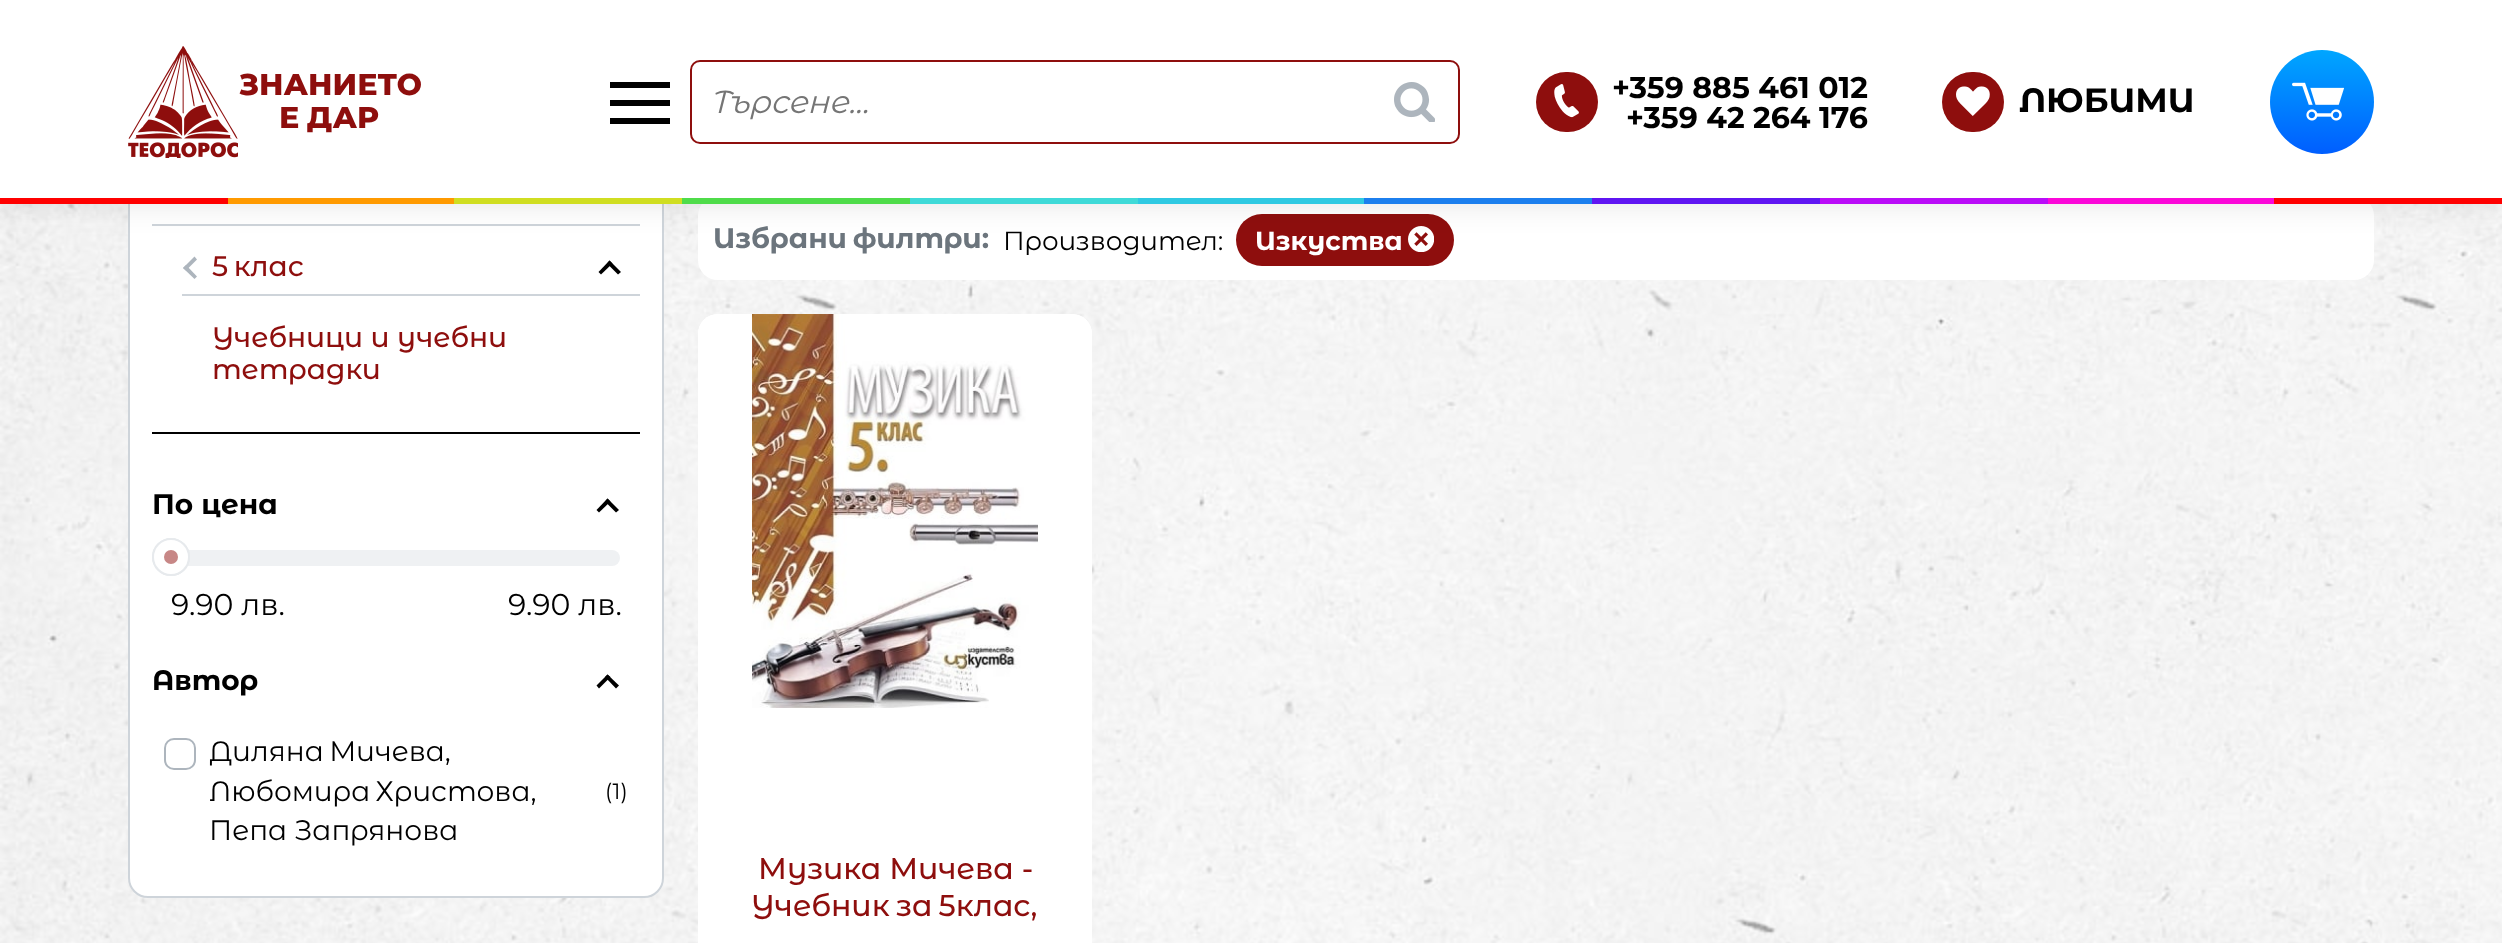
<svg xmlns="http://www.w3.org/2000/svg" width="2502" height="943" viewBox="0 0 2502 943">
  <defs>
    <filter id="blur1" x="-50%" y="-200%" width="200%" height="500%"><feGaussianBlur stdDeviation="15"/></filter>
    <linearGradient id="g1" gradientUnits="userSpaceOnUse" x1="2322" y1="50" x2="2322" y2="154"><stop offset="0" stop-color="#00a6ff"/><stop offset="1" stop-color="#005eff"/></linearGradient>
  </defs>
  <rect width="100%" height="100%" fill="#ffffff"/>
  <image x="0" y="204" width="2502" height="739" href="img1.png"/>
  <rect x="129" y="-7" width="534" height="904" rx="19" fill="#ffffff" stroke="#ced4da" stroke-width="2"/>
  <rect x="152" y="224" width="488" height="2" fill="#ced4da"/>
  <rect x="698" y="196" width="1676" height="84" rx="20" fill="#ffffff"/>
  <rect x="1236" y="214" width="218" height="52" rx="26" fill="#8e0e0d"/>
  <image x="1408" y="226" width="26" height="26" href="img7.png"/>
  <rect x="0" y="0" width="2502" height="204" fill="#000000" fill-opacity="0.1" filter="url(#blur1)"/>
  <rect x="0" y="0" width="2502" height="198" fill="#ffffff"/>
  <image x="128" y="46" width="110" height="112" href="img2.png"/>
  <text x="239" y="95" font-family="Montserrat" font-size="30" font-weight="800" fill="#8e0e0d">ЗНАНИЕТО</text>
  <text x="279" y="128" font-family="Montserrat" font-size="30" font-weight="800" fill="#8e0e0d">Е ДАР</text>
  <rect x="610" y="100" width="60" height="6" fill="#000000"/>
  <rect x="610" y="82" width="60" height="6" fill="#000000"/>
  <rect x="610" y="118" width="60" height="6" fill="#000000"/>
  <rect x="691" y="61" width="768" height="82" rx="9" fill="none" stroke="#8e0e0d" stroke-width="2"/>
  <text x="710" y="113" font-family="Montserrat Alternates" font-size="32" font-style="italic" fill="#757575">Търсене...</text>
  <image x="1394" y="82" width="41" height="40" href="img3.png"/>
  <rect x="1536" y="72" width="62" height="60" rx="30" fill="#8e0e0d"/>
  <image x="1554" y="84" width="25" height="34" href="img4.png"/>
  <text x="1612" y="98" font-family="Montserrat Alternates" font-size="30" font-weight="bold" fill="#000000">+359 885 461 012</text>
  <text x="1626" y="128" font-family="Montserrat Alternates" font-size="30" font-weight="bold" fill="#000000">+359 42 264 176</text>
  <rect x="1942" y="72" width="62" height="60" rx="30" fill="#8e0e0d"/>
  <image x="1956" y="86" width="34" height="30" href="img5.png"/>
  <text x="2019" y="112" font-family="Montserrat Alternates" font-size="33.75" font-weight="bold" fill="#000000">ЛЮБИМИ</text>
  <circle cx="2322" cy="102" r="52" fill="url(#g1)"/>
  <image x="2292" y="82" width="52" height="39" href="img6.png"/>
  <rect x="0" y="198" width="228" height="6" fill="#ff0000"/>
  <rect x="228" y="198" width="226" height="6" fill="#ff9a00"/>
  <rect x="454" y="198" width="228" height="6" fill="#d0de21"/>
  <rect x="682" y="198" width="228" height="6" fill="#4fdc4a"/>
  <rect x="910" y="198" width="228" height="6" fill="#3fdad8"/>
  <rect x="1138" y="198" width="226" height="6" fill="#2fc9e2"/>
  <rect x="1364" y="198" width="228" height="6" fill="#1c7fee"/>
  <rect x="1592" y="198" width="228" height="6" fill="#5f15f2"/>
  <rect x="1820" y="198" width="228" height="6" fill="#ba0cf8"/>
  <rect x="2048" y="198" width="226" height="6" fill="#fb07d9"/>
  <rect x="2274" y="198" width="228" height="6" fill="#ff0000"/>
  <rect x="152" y="432" width="488" height="2" fill="#000000"/>
  <path d="M197 276.5L194.5 279L183 268L186 265Z" fill="#adb5bd"/>
  <path d="M197 259.5L186 270.5L183 268L194.5 256.5Z" fill="#adb5bd"/>
  <text x="212" y="276" word-spacing="-2" font-family="Montserrat Alternates" font-size="28.1" font-weight="500" fill="#8e0e0d">5 клас</text>
  <path d="M601 274.5L598.5 272L609.5 260.5L612.5 263.5Z" fill="#000000"/>
  <path d="M618 274.5L607 263.5L609.5 260.5L621 272Z" fill="#000000"/>
  <rect x="182" y="294" width="458" height="2" fill="#ced4da"/>
  <text x="212" y="347" font-family="Montserrat Alternates" font-size="28.1" font-weight="500" fill="#8e0e0d">Учебници и учебни</text>
  <text x="212" y="379" font-family="Montserrat Alternates" font-size="28.1" font-weight="500" fill="#8e0e0d">тетрадки</text>
  <text x="152" y="514" font-family="Montserrat Alternates" font-size="28.1" font-weight="bold" fill="#000000">По цена</text>
  <path d="M599 512.5L596.5 510L607.5 498.5L610.5 501.5Z" fill="#000000"/>
  <path d="M616 512.5L605 501.5L607.5 498.5L619 510Z" fill="#000000"/>
  <rect x="172" y="550" width="448" height="16" rx="8" fill="#eff1f3"/>
  <circle cx="171" cy="557" r="18" fill="none" stroke="#e7eaed" stroke-width="2"/>
  <circle cx="171" cy="557" r="18" fill="#ffffff" stroke="#e7eaed" stroke-width="2"/>
  <circle cx="171" cy="557" r="7" fill="#c78786"/>
  <text x="171" y="615" font-family="Montserrat Alternates" font-size="30" fill="#000000">9.90 лв.</text>
  <text x="508" y="615" font-family="Montserrat Alternates" font-size="30" fill="#000000">9.90 лв.</text>
  <text x="152" y="690" font-family="Montserrat Alternates" font-size="28.1" font-weight="bold" fill="#000000">Автор</text>
  <path d="M599 688.5L596.5 685.5L607.5 674.5L610.5 677Z" fill="#000000"/>
  <path d="M616 688.5L605 677L607.5 674.5L619 685.5Z" fill="#000000"/>
  <rect x="165" y="739" width="30" height="30" rx="9" fill="none" stroke="#adb5bd" stroke-width="2"/>
  <text x="209" y="761" word-spacing="-2" font-family="Montserrat Alternates" font-size="28.1" fill="#000000">Диляна Мичева,</text>
  <text x="209" y="801" word-spacing="-2" font-family="Montserrat Alternates" font-size="28.1" fill="#000000">Любомира Христова,</text>
  <text x="209" y="840" font-family="Montserrat Alternates" font-size="28.1" fill="#000000">Пепа Запрянова</text>
  <text x="605" y="799" font-family="Montserrat Alternates" font-size="22" fill="#000000">(1)</text>
  <text x="713" y="248" word-spacing="-2" font-family="Montserrat Alternates" font-size="28.1" font-weight="bold" fill="#6c757d">Избрани филтри:</text>
  <text x="1003" y="250" font-family="Montserrat Alternates" font-size="26.25" fill="#000000">Производител:</text>
  <text x="1255" y="250" font-family="Montserrat Alternates" font-size="26.25" font-weight="bold" fill="#ffffff">Изкуства</text>
  <rect x="698" y="314" width="394" height="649" rx="20" fill="#ffffff"/>
  <rect x="698" y="314" width="394" height="394" rx="20" fill="#ffffff"/>
  <image x="752" y="314" width="286" height="394" href="img8.png"/>
  <text x="758" y="879" font-family="Montserrat Alternates" font-size="30" font-weight="500" fill="#8e0e0d">Музика Мичева -</text>
  <text x="751" y="916" word-spacing="-2" font-family="Montserrat Alternates" font-size="30" font-weight="500" fill="#8e0e0d">Учебник за 5клас,</text>
</svg>
